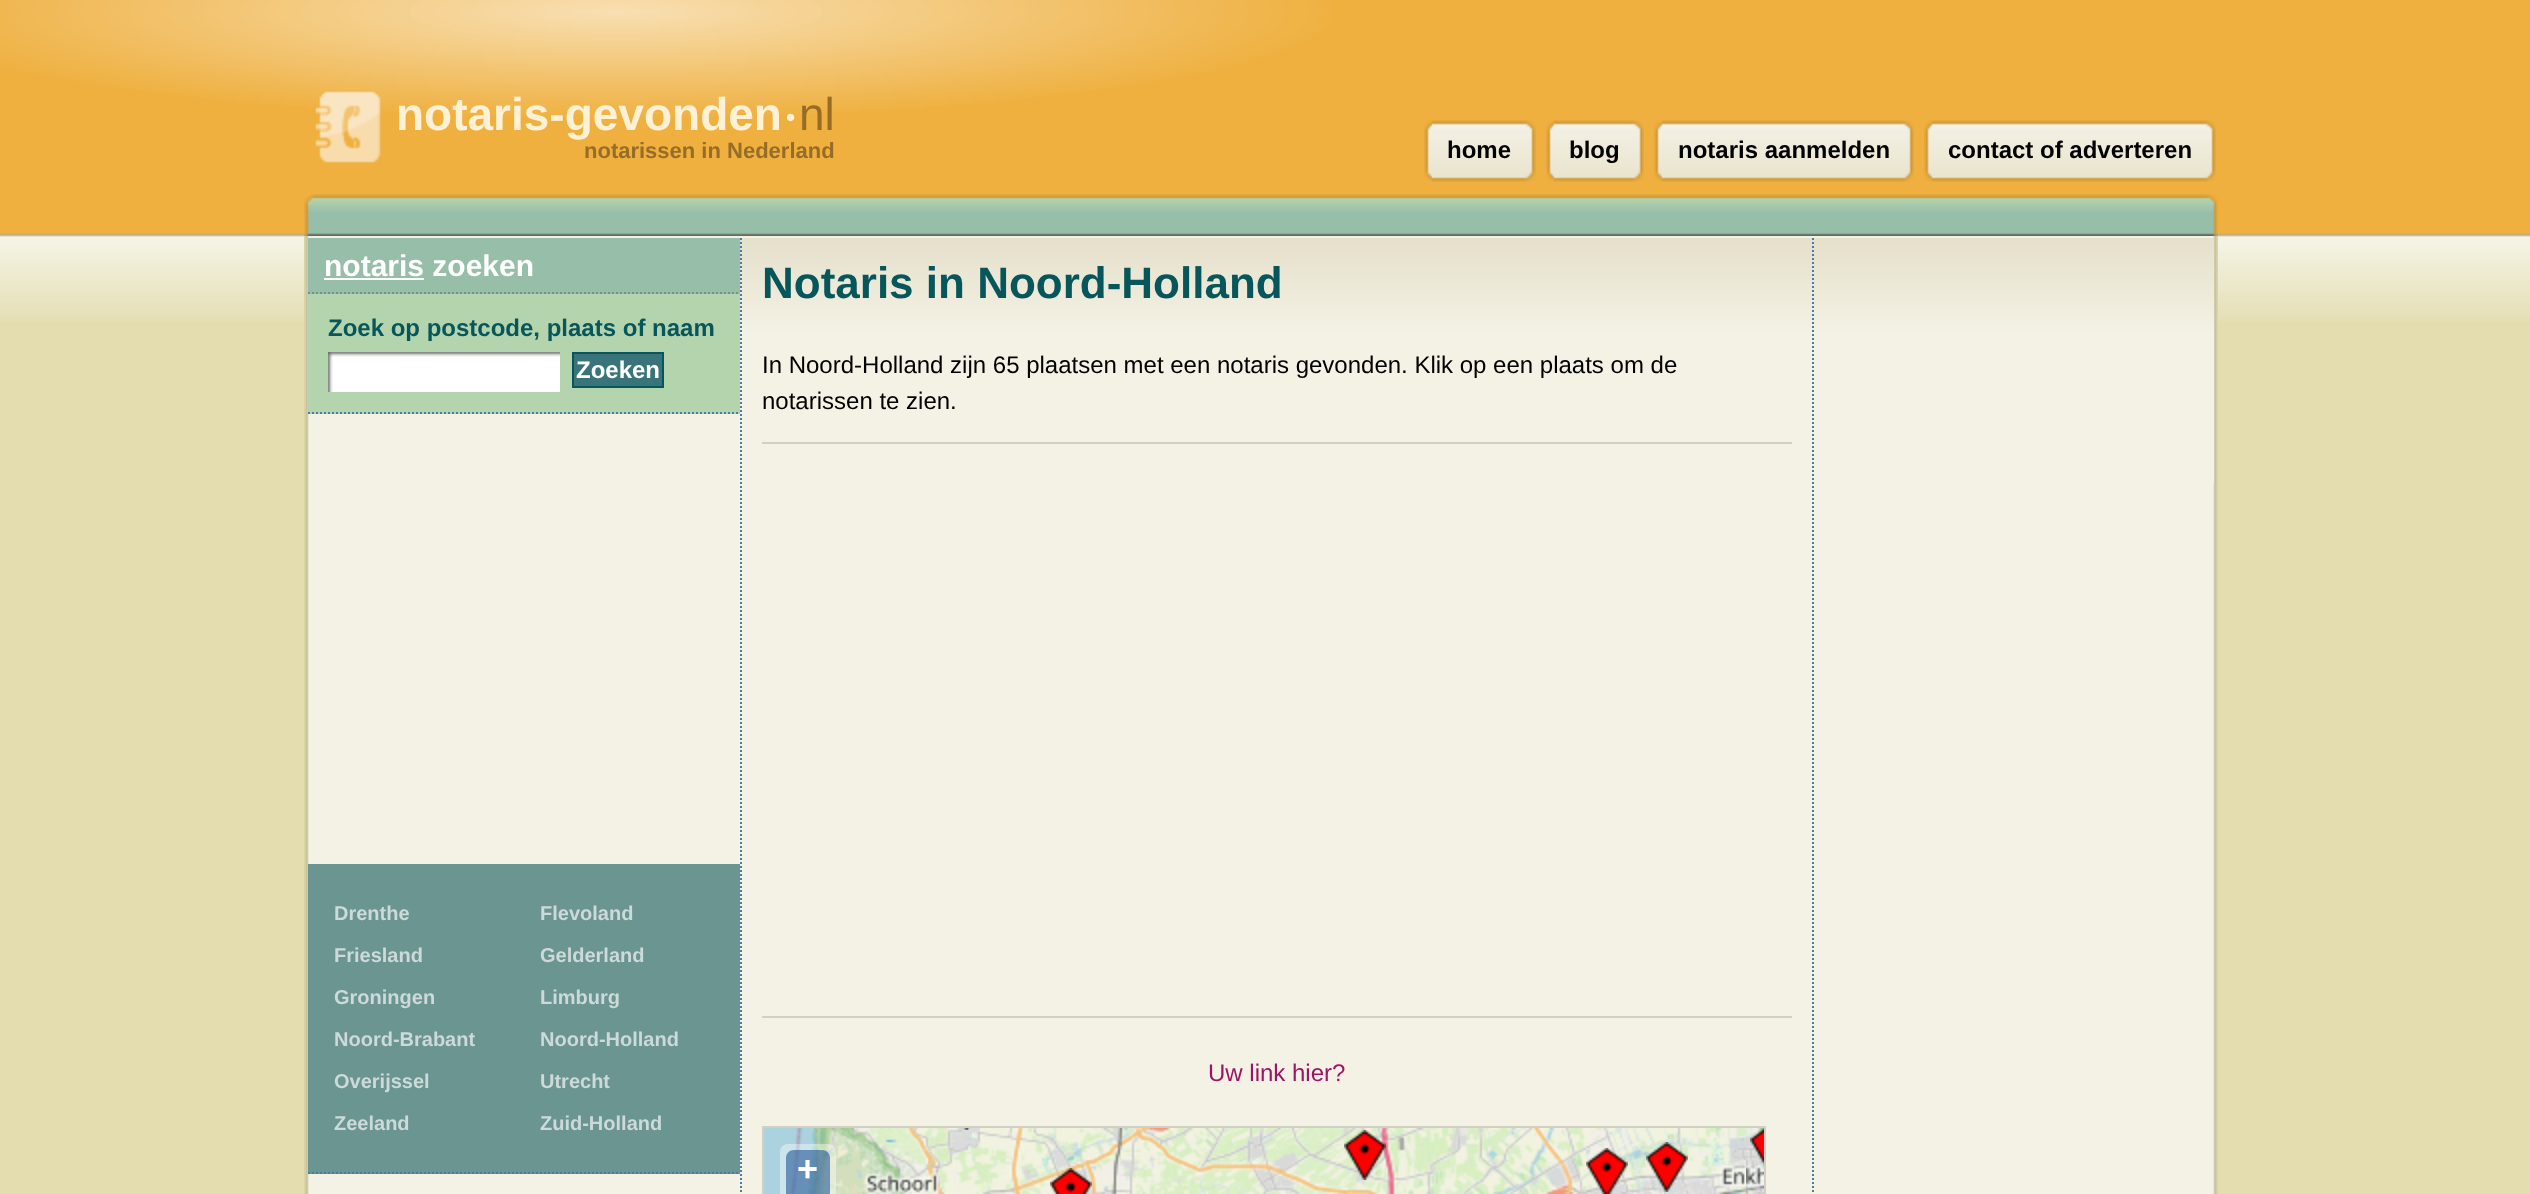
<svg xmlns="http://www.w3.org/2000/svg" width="2530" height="1194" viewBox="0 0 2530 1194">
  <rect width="100%" height="100%" fill="#e3ddb0"/>
  <image x="0" y="0" width="2530" height="321" href="img1.png"/>
  <image x="315" y="91" width="66" height="72" href="img2.png"/>
  <text x="396" y="130" font-family="Liberation Sans" font-size="46" font-weight="bold" fill="#fff1d5">notaris-gevonden</text>
  <text x="786" y="126" font-family="Liberation Sans" font-size="26" font-weight="bold" fill="#fff1d5">•</text>
  <text x="799" y="130" font-family="Liberation Sans" font-size="46" fill="#956d27">nl</text>
  <text x="584" y="158" font-family="Liberation Sans" font-size="22" font-weight="bold" fill="#956d27">notarissen in Nederland</text>
  <image x="304" y="194" width="1914" height="42" href="img3.png"/>
  <image x="1424" y="120" width="8" height="62" href="img4.png"/>
  <image x="1432" y="120" width="104" height="62" href="img5.png"/>
  <text x="1447" y="158" font-family="Liberation Sans" font-size="24" font-weight="bold" fill="#000000">home</text>
  <image x="1546" y="120" width="8" height="62" href="img4.png"/>
  <image x="1554" y="120" width="90" height="62" href="img6.png"/>
  <text x="1569" y="158" font-family="Liberation Sans" font-size="24" font-weight="bold" fill="#000000">blog</text>
  <image x="1654" y="120" width="8" height="62" href="img4.png"/>
  <image x="1662" y="120" width="252" height="62" href="img7.png"/>
  <text x="1678" y="158" font-family="Liberation Sans" font-size="24" font-weight="bold" fill="#000000">notaris aanmelden</text>
  <image x="1924" y="120" width="8" height="62" href="img4.png"/>
  <image x="1932" y="120" width="284" height="62" href="img8.png"/>
  <text x="1948" y="158" font-family="Liberation Sans" font-size="24" font-weight="bold" fill="#000000">contact of adverteren</text>
  <image x="304" y="236" width="1914" height="958" href="img9.png"/>
  <rect x="308" y="238" width="432" height="56" fill="#97bea9"/>
  <path d="M308 293H740" fill="none" stroke="#6b9591" stroke-width="2" stroke-dasharray="2 2"/>
  <text x="324" y="276" font-family="Liberation Sans" font-size="30" font-weight="bold" fill="#ffffff">notaris zoeken</text>
  <rect x="324" y="278" width="100" height="2" fill="#ffffff"/>
  <rect x="308" y="294" width="432" height="120" fill="#b4d4ad"/>
  <path d="M308 413H740" fill="none" stroke="#4e7ba5" stroke-width="2" stroke-dasharray="2 2"/>
  <text x="328" y="336" font-family="Liberation Sans" font-size="24" font-weight="bold" fill="#07565b">Zoek op postcode, plaats of naam</text>
  <image x="328" y="352" width="232" height="40" href="img10.png"/>
  <rect x="573" y="353" width="90" height="34" fill="#39747a" stroke="#07565b" stroke-width="2"/>
  <text x="576" y="378" font-family="Liberation Sans" font-size="24" font-weight="bold" fill="#ffffff">Zoeken</text>
  <rect x="308" y="864" width="432" height="310" fill="#6b9591"/>
  <path d="M308 1173H740" fill="none" stroke="#4e7ba5" stroke-width="2" stroke-dasharray="2 2"/>
  <text x="334" y="920" font-family="Liberation Sans" font-size="20" font-weight="bold" fill="#ccdad9">Drenthe</text>
  <text x="540" y="920" font-family="Liberation Sans" font-size="20" font-weight="bold" fill="#ccdad9">Flevoland</text>
  <text x="334" y="962" font-family="Liberation Sans" font-size="20" font-weight="bold" fill="#ccdad9">Friesland</text>
  <text x="540" y="962" font-family="Liberation Sans" font-size="20" font-weight="bold" fill="#ccdad9">Gelderland</text>
  <text x="334" y="1004" font-family="Liberation Sans" font-size="20" font-weight="bold" fill="#ccdad9">Groningen</text>
  <text x="540" y="1004" font-family="Liberation Sans" font-size="20" font-weight="bold" fill="#ccdad9">Limburg</text>
  <text x="334" y="1046" font-family="Liberation Sans" font-size="20" font-weight="bold" fill="#ccdad9">Noord-Brabant</text>
  <text x="540" y="1046" font-family="Liberation Sans" font-size="20" font-weight="bold" fill="#ccdad9">Noord-Holland</text>
  <text x="334" y="1088" font-family="Liberation Sans" font-size="20" font-weight="bold" fill="#ccdad9">Overijssel</text>
  <text x="540" y="1088" font-family="Liberation Sans" font-size="20" font-weight="bold" fill="#ccdad9">Utrecht</text>
  <text x="334" y="1130" font-family="Liberation Sans" font-size="20" font-weight="bold" fill="#ccdad9">Zeeland</text>
  <text x="540" y="1130" font-family="Liberation Sans" font-size="20" font-weight="bold" fill="#ccdad9">Zuid-Holland</text>
  <image x="740" y="238" width="1474" height="246" href="img11.png"/>
  <path d="M1813 238V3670" fill="none" stroke="#4e7ba5" stroke-width="2" stroke-dasharray="2 2"/>
  <path d="M741 238V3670" fill="none" stroke="#4e7ba5" stroke-width="2" stroke-dasharray="2 2"/>
  <text x="762" y="298" font-family="Liberation Sans" font-size="44" font-weight="bold" fill="#07565b">Notaris in Noord-Holland</text>
  <text x="762" y="373" font-family="Liberation Sans" font-size="24" fill="#000000">In Noord-Holland zijn 65 plaatsen met een notaris gevonden. Klik op een plaats om de</text>
  <text x="762" y="409" font-family="Liberation Sans" font-size="24" fill="#000000">notarissen te zien.</text>
  <rect x="762" y="442" width="1030" height="2" fill="#d2d0c5"/>
  <rect x="762" y="1016" width="1030" height="2" fill="#d2d0c5"/>
  <text x="1208" y="1081" font-family="Liberation Sans" font-size="24" fill="#9e1465">Uw link hier?</text>
  <rect x="763" y="1127" width="1002" height="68" fill="none" stroke="#d2d0c5" stroke-width="2"/>
  <image x="764" y="1128" width="470" height="66" href="img12.png"/>
  <image x="1234" y="1128" width="512" height="66" href="img13.png"/>
  <image x="1746" y="1128" width="18" height="66" href="img14.png"/>
  <image x="963" y="1128" width="8" height="2" href="img15.png"/>
  <image x="1050" y="1168" width="42" height="26" href="img16.png"/>
  <image x="1344" y="1130" width="42" height="50" href="img17.png"/>
  <image x="1586" y="1148" width="42" height="46" href="img18.png"/>
  <image x="1646" y="1142" width="42" height="50" href="img19.png"/>
  <image x="1750" y="1128" width="14" height="39" href="img20.png"/>
  <rect x="780" y="1144" width="56" height="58" rx="8" fill="#ffffff" fill-opacity="0.4"/>
  <path d="M794 1150H822C826.5 1150 830 1153.5 830 1158V1194H786V1158C786 1153.5 789.5 1150 794 1150Z" fill="#003c88" fill-opacity="0.5"/>
  <text x="797" y="1181" font-family="Liberation Sans" font-size="36" font-weight="bold" fill="#ffffff">+</text>
</svg>
